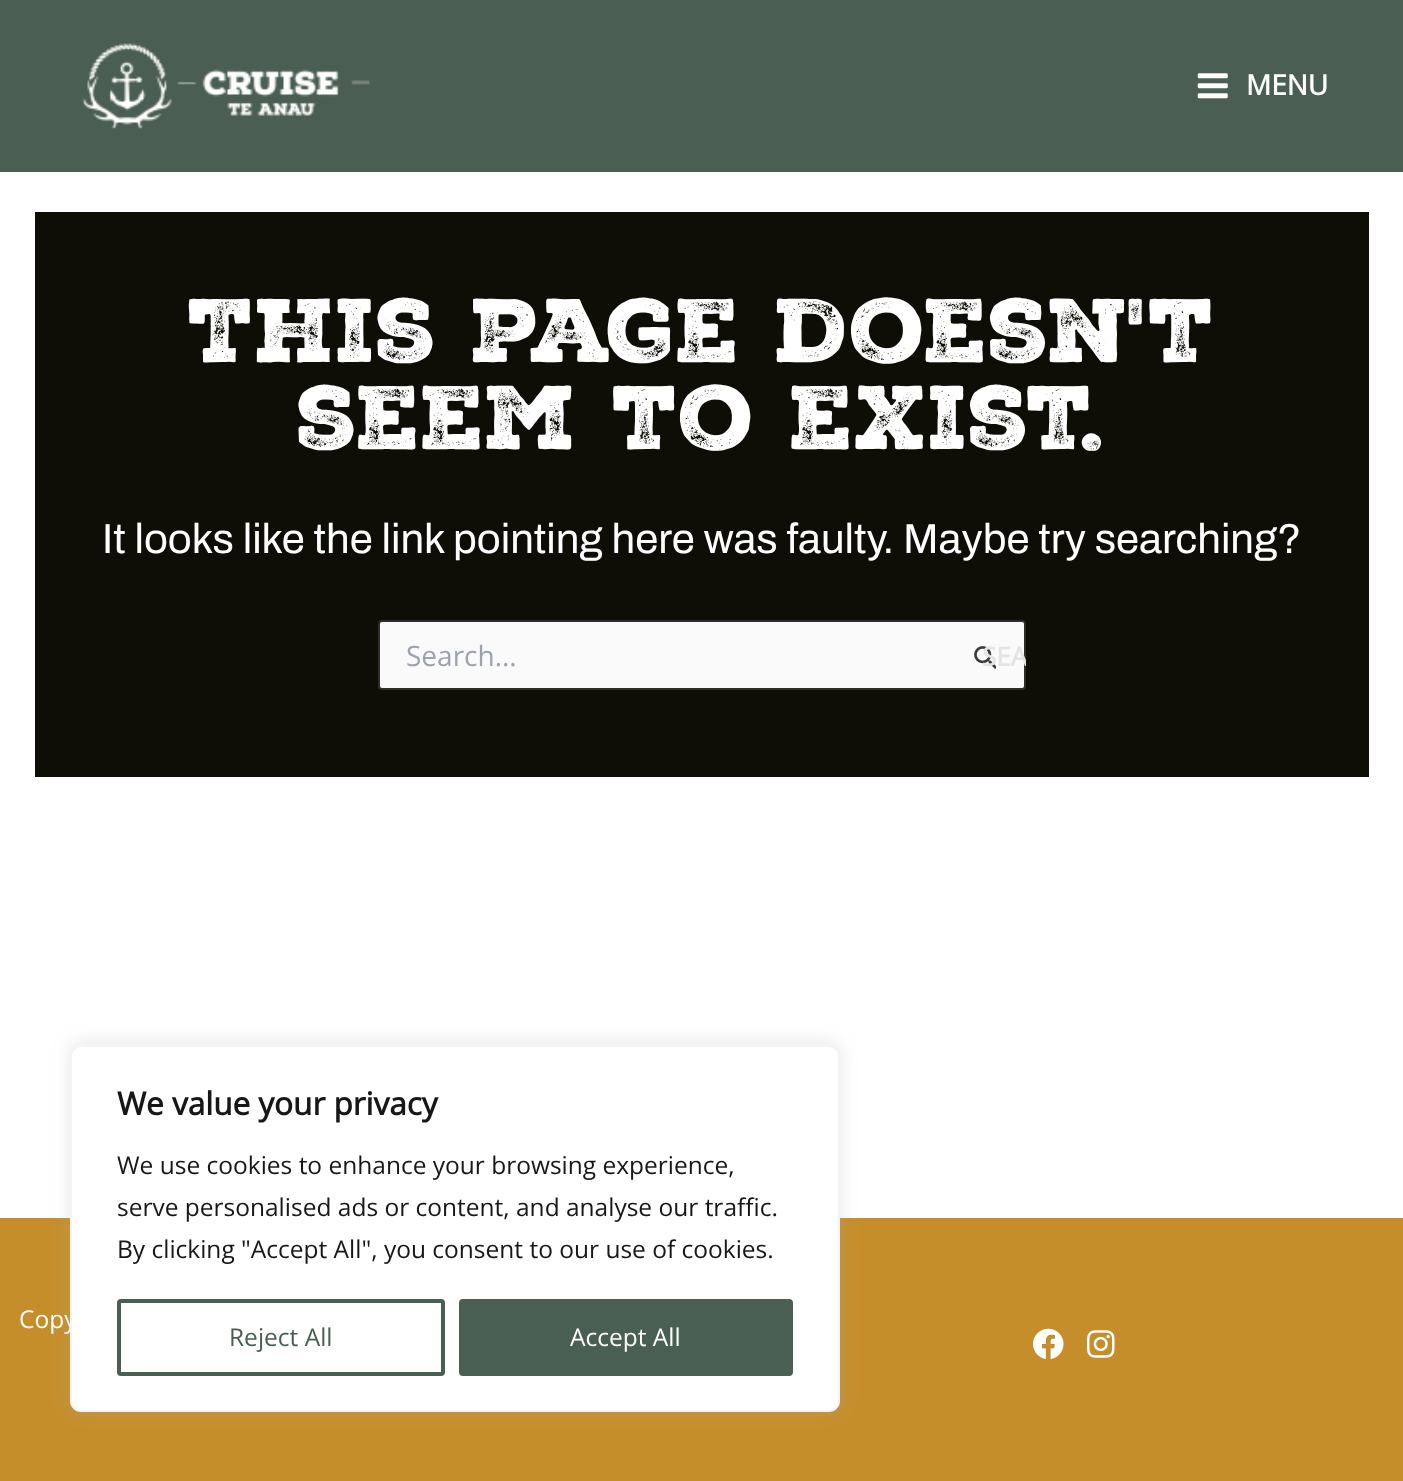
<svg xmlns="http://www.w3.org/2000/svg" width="1403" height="1481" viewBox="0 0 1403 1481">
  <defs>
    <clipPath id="clip1"><rect x="947" y="620" width="79" height="71" rx="4"/></clipPath>
    <filter id="blur1" x="-50%" y="-200%" width="200%" height="500%"><feGaussianBlur stdDeviation="9"/></filter>
  </defs>
  <rect width="100%" height="100%" fill="#ffffff"/>
  <rect x="0" y="0" width="1403" height="172" fill="#4b5e53"/>
  <image x="82" y="43" width="288" height="87" href="img1.png"/>
  <image x="1197" y="73" width="31" height="26" href="img2.png"/>
  <text x="1246" y="95" font-family="Open Sans" font-size="28" font-weight="bold" fill="#ffffff">MENU</text>
  <rect x="35" y="212" width="1334" height="565" fill="#0e0d06"/>
  <text x="188" y="362" font-family="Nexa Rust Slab" font-size="87.5" font-weight="900" fill="#ffffff">This page doesn't</text>
  <text x="298" y="449" font-family="Nexa Rust Slab" font-size="87.5" font-weight="900" fill="#ffffff">seem to exist.</text>
  <text x="102" y="553" font-family="Archivo" font-size="42" fill="#ffffff">It looks like the link pointing here was faulty. Maybe try searching?</text>
  <rect x="379" y="621" width="646" height="68" rx="3" fill="#fafafa" stroke="#2e2d2a" stroke-width="2"/>
  <text x="406" y="666" font-family="Open Sans" font-size="28" fill="#9ca3af">Search...</text>
  <image x="974" y="646" width="22" height="23" href="img3.png"/>
  <g clip-path="url(#clip1)">
    <text x="982" y="666" font-family="Open Sans" font-size="26" font-weight="bold" fill="#e4e4e4">SEA</text>
  </g>
  <rect x="0" y="1218" width="1403" height="263" fill="#c68e2b"/>
  <text x="19" y="1328" font-family="Open Sans" font-size="24.5" fill="#ffffff">Copy</text>
  <image x="1033" y="1328" width="31" height="31" href="img4.png"/>
  <image x="1086" y="1330" width="29" height="28" href="img5.png"/>
  <rect x="70" y="1043" width="770" height="368" rx="11" fill="#acabab" fill-opacity="0.3" filter="url(#blur1)"/>
  <rect x="71" y="1046" width="768" height="365" rx="10" fill="#ffffff" stroke="#f4f4f4" stroke-width="2"/>
  <text x="117" y="1115" font-family="Open Sans" font-size="31.5" font-weight="bold" fill="#171717">We value your privacy</text>
  <text x="117" y="1174" font-family="Open Sans" font-size="24.5" fill="#171717">We use cookies to enhance your browsing experience,</text>
  <text x="117" y="1216" font-family="Open Sans" font-size="24.5" fill="#171717">serve personalised ads or content, and analyse our traffic.</text>
  <text x="117" y="1258" font-family="Open Sans" font-size="24.5" fill="#171717">By clicking "Accept All", you consent to our use of cookies.</text>
  <rect x="119" y="1301" width="324" height="73" rx="2" fill="none" stroke="#4a5f53" stroke-width="4"/>
  <text x="229" y="1346" font-family="Open Sans" font-size="24.5" fill="#4a5f53">Reject All</text>
  <rect x="461" y="1301" width="330" height="73" rx="2" fill="#4a5f53" stroke="#4a5f53" stroke-width="4"/>
  <text x="570" y="1346" font-family="Open Sans" font-size="24.5" fill="#ffffff">Accept All</text>
</svg>
